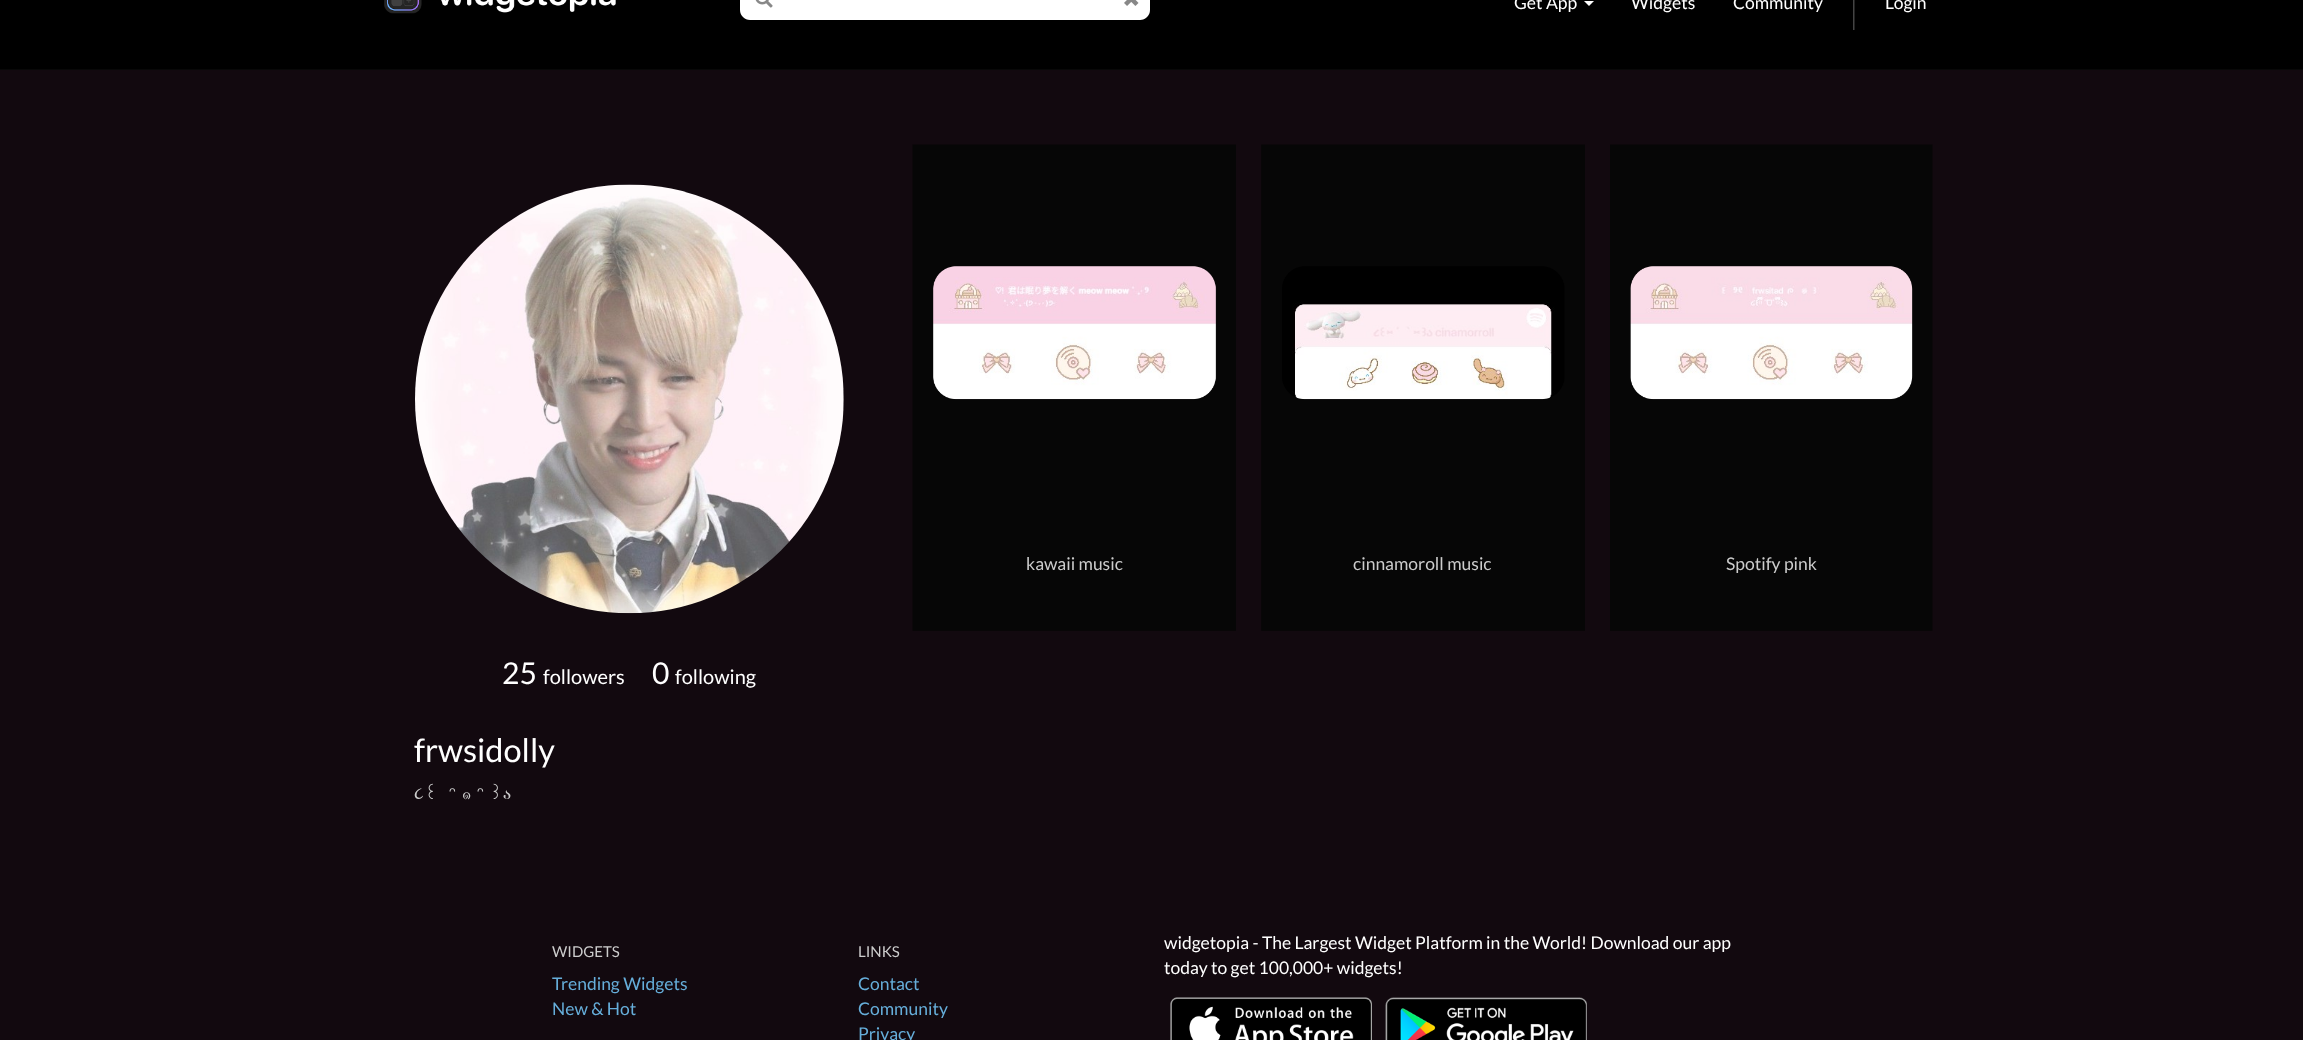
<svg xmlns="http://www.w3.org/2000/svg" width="2303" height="1040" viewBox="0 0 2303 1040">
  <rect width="100%" height="100%" fill="#12090f"/>
  <rect x="0" y="0" width="2303" height="69" fill="#000000"/>
  <rect x="0" y="69" width="2303" height="1" fill="#080808"/>
  <image x="384" y="0" width="232" height="14" href="img1.png"/>
  <path d="M750-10H783V20H750C744.5 20 740 15.5 740 10V0C740-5.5 744.5-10 750-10Z" fill="#ffffff"/>
  <image x="755" y="0" width="18" height="8" href="img2.png"/>
  <rect x="783" y="0" width="325" height="20" fill="#ffffff"/>
  <path d="M1108-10H1140C1145.5-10 1150-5.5 1150 0V10C1150 15.5 1145.5 20 1140 20H1108Z" fill="#ffffff"/>
  <image x="1124" y="0" width="15" height="6" href="img3.png"/>
  <text x="1514" y="9" font-family="Lato" font-size="17.5" fill="#ffffff">Get App</text>
  <path d="M1584 1H1594L1589 6Z" fill="#ffffff"/>
  <text x="1631" y="9" font-family="Lato" font-size="17.5" fill="#ffffff">Widgets</text>
  <text x="1733" y="9" font-family="Lato" font-size="17.5" fill="#ffffff">Community</text>
  <rect x="1854" y="0" width="1" height="30" fill="#222222"/>
  <rect x="1853" y="0" width="1" height="30" fill="#444444"/>
  <text x="1885" y="9" font-family="Lato" font-size="17.5" fill="#ffffff">Login</text>
  <image x="933" y="266" width="284" height="134" href="img5.png"/>
  <image x="912" y="144" width="324" height="487" href="img4.png"/>
  <text x="1026" y="570" font-family="Lato" font-size="17.5" fill="#cccccc">kawaii music</text>
  <image x="1282" y="266" width="283" height="134" href="img7.png"/>
  <image x="1261" y="144" width="324" height="487" href="img6.png"/>
  <text x="1353" y="570" font-family="Lato" font-size="17.5" fill="#cccccc">cinnamoroll music</text>
  <image x="1630" y="266" width="283" height="134" href="img9.png"/>
  <image x="1610" y="144" width="323" height="487" href="img8.png"/>
  <text x="1726" y="570" font-family="Lato" font-size="17.5" fill="#cccccc">Spotify pink</text>
  <image x="415" y="184" width="429" height="430" href="img10.png"/>
  <text x="502" y="684" font-family="Lato" font-size="30" fill="#ffffff">25</text>
  <text x="543" y="684" font-family="Lato" font-size="20" fill="#ffffff">followers</text>
  <text x="652" y="684" font-family="Lato" font-size="30" fill="#ffffff">0</text>
  <text x="675" y="684" font-family="Lato" font-size="20" fill="#ffffff">following</text>
  <text x="414" y="762" font-family="Lato" font-size="32.5" fill="#ffffff">frwsidolly</text>
  <text x="414" y="799" font-family="FreeSerif" font-size="17.5" fill="#cccccc">૮</text>
  <text x="424" y="799" font-family="Nuosu SIL" font-size="17.5" fill="#cccccc">꒰</text>
  <text x="449" y="799" font-family="Liberation Sans" font-size="17.5" fill="#cccccc">ᵔ</text>
  <text x="462" y="799" font-family="FreeSerif" font-size="17.5" fill="#cccccc">๑</text>
  <text x="477" y="799" font-family="Liberation Sans" font-size="17.5" fill="#cccccc">ᵔ</text>
  <text x="489" y="799" font-family="Nuosu SIL" font-size="17.5" fill="#cccccc">꒱</text>
  <text x="503" y="799" font-family="FreeSerif" font-size="17.5" fill="#cccccc">ა</text>
  <text x="552" y="957" font-family="Lato" font-size="15" fill="#cccccc">WIDGETS</text>
  <text x="552" y="990" font-family="Lato" font-size="17.5" fill="#66aeda">Trending Widgets</text>
  <text x="552" y="1015" font-family="Lato" font-size="17.5" fill="#66aeda">New &amp; Hot</text>
  <text x="858" y="957" font-family="Lato" font-size="15" fill="#cccccc">LINKS</text>
  <text x="858" y="990" font-family="Lato" font-size="17.5" fill="#66aeda">Contact</text>
  <text x="858" y="1015" font-family="Lato" font-size="17.5" fill="#66aeda">Community</text>
  <text x="858" y="1040" font-family="Lato" font-size="17.5" fill="#66aeda">Privacy</text>
  <text x="1164" y="949" font-family="Lato" font-size="17.5" fill="#ffffff">widgetopia - The Largest Widget Platform in the World! Download our app</text>
  <text x="1164" y="974" font-family="Lato" font-size="17.5" fill="#ffffff">today to get 100,000+ widgets!</text>
  <image x="1170" y="997" width="202" height="43" href="img11.png"/>
  <image x="1385" y="997" width="202" height="43" href="img12.png"/>
</svg>
